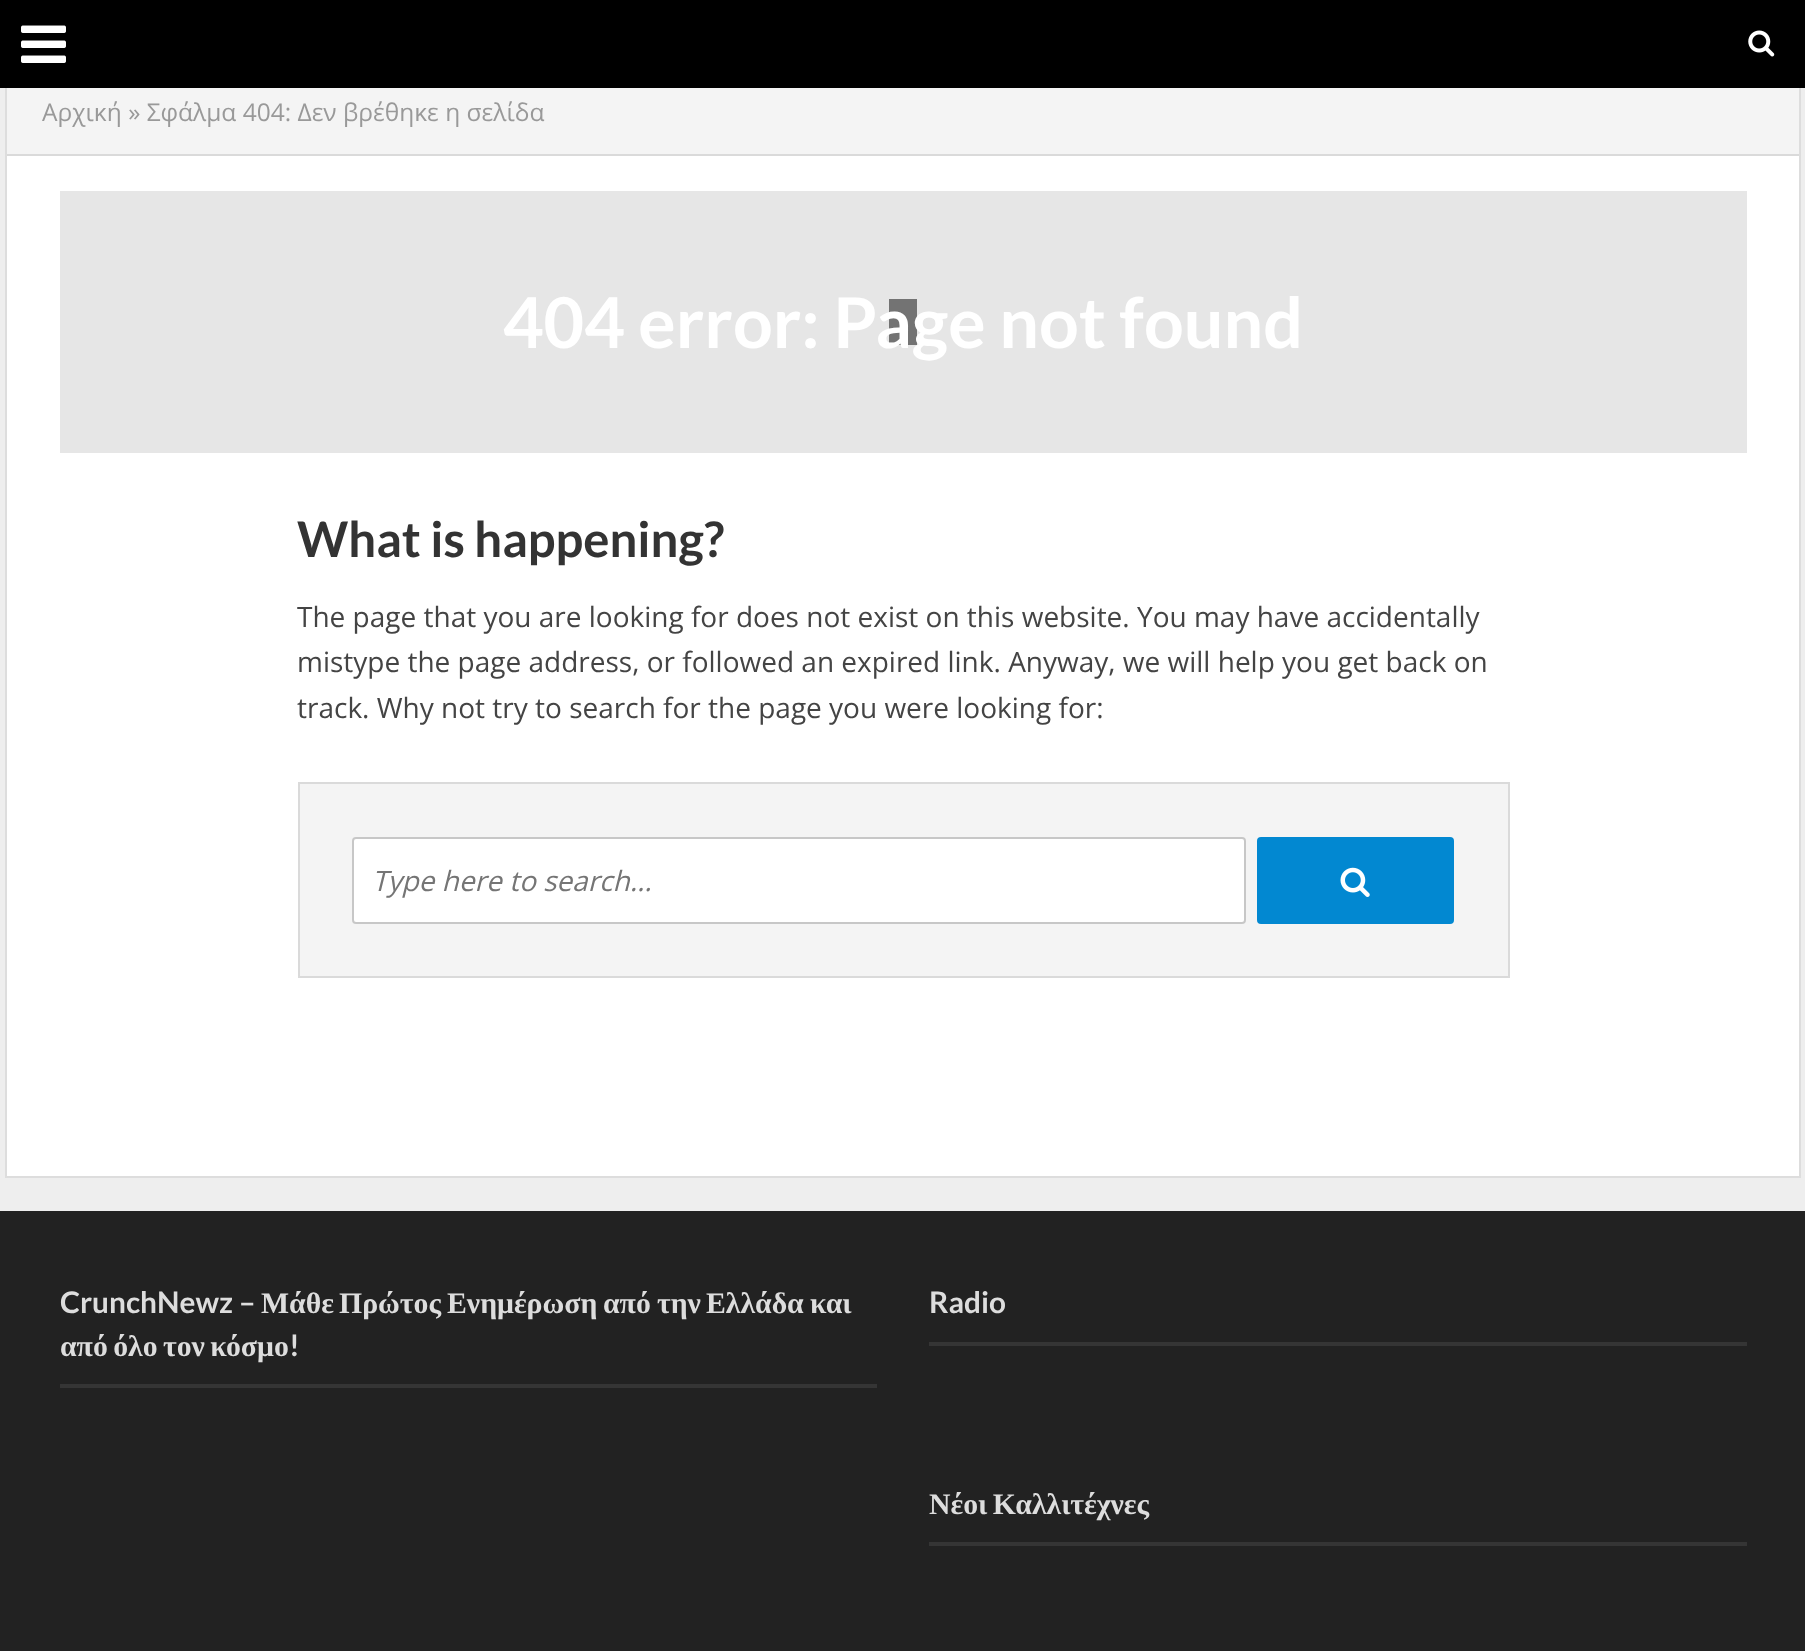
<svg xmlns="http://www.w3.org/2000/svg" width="1805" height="1651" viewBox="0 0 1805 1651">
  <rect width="100%" height="100%" fill="#eeeeee"/>
  <rect x="6" y="69" width="1794" height="1108" fill="none" stroke="#dddddd" stroke-width="2"/>
  <rect x="0" y="0" width="1805" height="88" fill="#000000"/>
  <image x="21" y="25" width="45" height="38" href="img1.png"/>
  <image x="1748" y="30" width="27" height="27" href="img2.png"/>
  <rect x="7" y="156" width="1792" height="1020" fill="#ffffff"/>
  <rect x="7" y="88" width="1792" height="66" fill="#f4f4f4"/>
  <rect x="7" y="154" width="1792" height="2" fill="#dadada"/>
  <text x="42" y="121" font-family="Open Sans" font-size="24.5" fill="#999999">Αρχική » Σφάλμα 404: Δεν βρέθηκε η σελίδα</text>
  <rect x="60" y="191" width="1687" height="262" fill="#e6e6e6"/>
  <rect x="889" y="299" width="28" height="46" fill="#737373"/>
  <text x="503" y="348" font-family="Lato" font-size="70" font-weight="bold" fill="#ffffff">404 error: Page not found</text>
  <text x="297" y="557" font-family="Lato" font-size="49" font-weight="bold" fill="#333333">What is happening?</text>
  <text x="297" y="627" font-family="Open Sans" font-size="28" fill="#444444">The page that you are looking for does not exist on this website. You may have accidentally</text>
  <text x="297" y="672" font-family="Open Sans" font-size="28" fill="#444444">mistype the page address, or followed an expired link. Anyway, we will help you get back on</text>
  <text x="297" y="718" font-family="Open Sans" font-size="28" fill="#444444">track. Why not try to search for the page you were looking for:</text>
  <rect x="299" y="783" width="1210" height="194" fill="#f4f4f4" stroke="#dadada" stroke-width="2"/>
  <rect x="352" y="837" width="894" height="87" rx="4" fill="#ffffff"/>
  <rect x="353" y="838" width="892" height="85" rx="3" fill="none" stroke="#444444" stroke-opacity="0.3" stroke-width="2"/>
  <text x="372" y="891" font-family="Open Sans" font-size="28" font-style="italic" fill="#757575">Type here to search...</text>
  <rect x="1257" y="837" width="197" height="87" rx="4" fill="#0288d1"/>
  <image x="1340" y="867" width="30" height="30" href="img3.png"/>
  <rect x="0" y="1211" width="1805" height="440" fill="#222222"/>
  <text x="60" y="1313" font-family="Lato" font-size="29.75" font-weight="bold" fill="#dddddd">CrunchNewz –</text>
  <text x="261" y="1313" font-family="Liberation Serif" font-size="29.75" font-weight="bold" fill="#dddddd">Μάθε</text>
  <text x="339" y="1313" font-family="Liberation Serif" font-size="29.75" font-weight="bold" fill="#dddddd">Πρώτος</text>
  <text x="447" y="1313" font-family="Liberation Serif" font-size="29.75" font-weight="bold" fill="#dddddd">Ενημέρωση</text>
  <text x="603" y="1313" font-family="Liberation Serif" font-size="29.75" font-weight="bold" fill="#dddddd">από</text>
  <text x="657" y="1313" font-family="Liberation Serif" font-size="29.75" font-weight="bold" fill="#dddddd">την</text>
  <text x="706" y="1313" font-family="Liberation Serif" font-size="29.75" font-weight="bold" fill="#dddddd">Ελλάδα</text>
  <text x="810" y="1313" font-family="Liberation Serif" font-size="29.75" font-weight="bold" fill="#dddddd">και</text>
  <text x="60" y="1356" word-spacing="-2" font-family="Liberation Serif" font-size="29.75" font-weight="bold" fill="#dddddd">από όλο τον κόσμο</text>
  <text x="289" y="1356" font-family="Lato" font-size="29.75" font-weight="bold" fill="#dddddd">!</text>
  <rect x="60" y="1384" width="817" height="4" fill="#353535"/>
  <text x="929" y="1313" font-family="Lato" font-size="29.75" font-weight="bold" fill="#dddddd">Radio</text>
  <rect x="929" y="1342" width="818" height="4" fill="#353535"/>
  <text x="929" y="1514" word-spacing="-2" font-family="Liberation Serif" font-size="29.75" font-weight="bold" fill="#dddddd">Νέοι Καλλιτέχνες</text>
  <rect x="929" y="1542" width="818" height="4" fill="#353535"/>
</svg>
